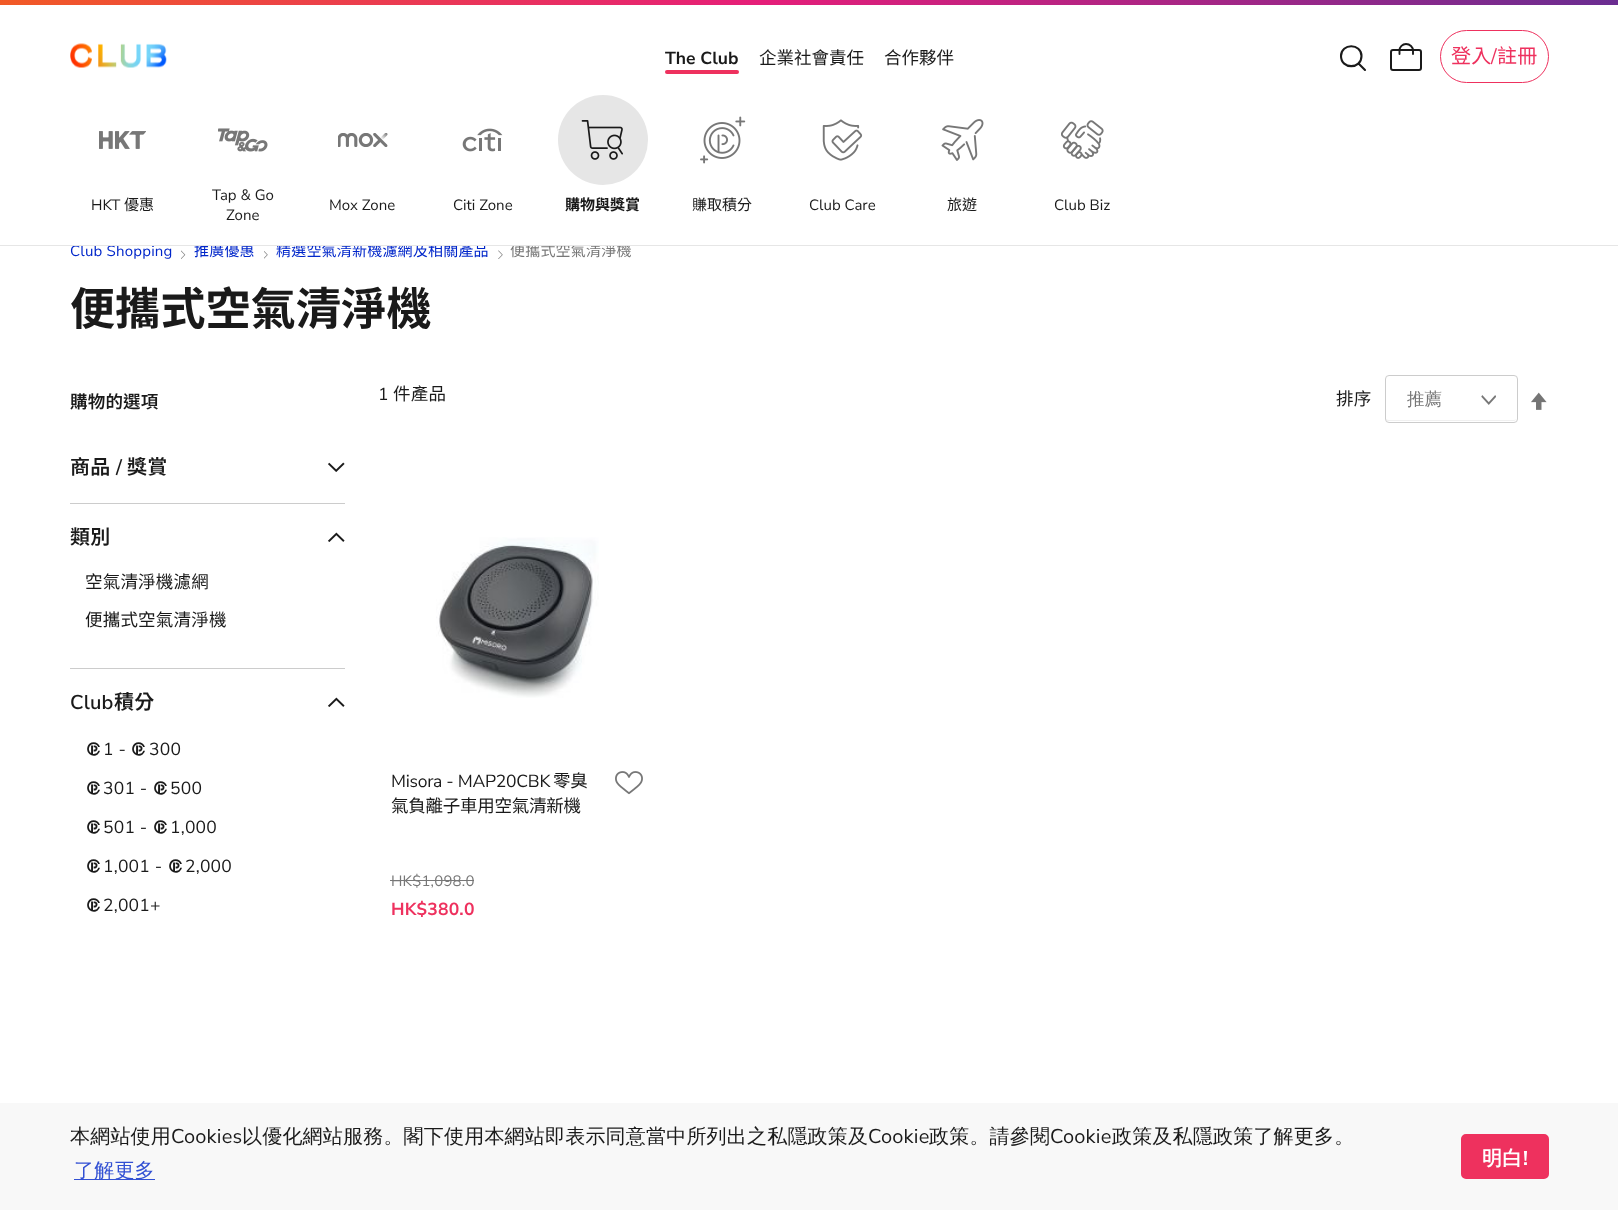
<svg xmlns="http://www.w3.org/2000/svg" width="1618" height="1210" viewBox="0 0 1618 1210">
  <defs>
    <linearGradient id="g1" gradientUnits="userSpaceOnUse" x1="0" y1="2.5" x2="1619" y2="2.5"><stop offset="0" stop-color="#f15a26"/><stop offset="0.47" stop-color="#e51e79"/><stop offset="1" stop-color="#6a2d91"/></linearGradient>
  </defs>
  <rect width="100%" height="100%" fill="#ffffff"/>
  <text x="194" y="256" font-family="Noto Sans TC" font-size="15" letter-spacing="0.2" fill="#0026ca">推廣優惠</text>
  <text x="276" y="256" font-family="Noto Sans TC" font-size="15" letter-spacing="0.2" fill="#0026ca">精選空氣清新機濾網及相關產品</text>
  <text x="510" y="256" font-family="Noto Sans TC" font-size="15" letter-spacing="0.2" fill="#777777">便攜式空氣清淨機</text>
  <rect x="196" y="243" width="434" height="2" fill="#ffffff"/>
  <rect x="0" y="0" width="1618" height="5" fill="url(#g1)"/>
  <image x="70" y="43" width="97" height="25" href="img1.png"/>
  <text x="665" y="64" font-family="Nunito Sans" font-size="17.5" font-weight="bold" fill="#1a1a1a">The Club</text>
  <rect x="665" y="70" width="74" height="4" rx="2" fill="#ee315e"/>
  <text x="759" y="64" font-family="Noto Sans TC" font-size="17.5" fill="#1a1a1a">企業社會責任</text>
  <text x="884" y="64" font-family="Noto Sans TC" font-size="17.5" fill="#1a1a1a">合作夥伴</text>
  <path d="M1361.5 56C1361.5 69.5 1341 69.5 1341 56C1341 43 1361.5 43 1361.5 56ZM1359 64L1365 70" fill="none" stroke="#1a1a1a" stroke-width="2.1" stroke-linecap="round" stroke-linejoin="round"/>
  <rect x="1391" y="50" width="30" height="20" rx="2" fill="none" stroke="#1a1a1a" stroke-width="2"/>
  <path d="M1413 54V50.5C1413 47 1410 44 1406 44C1402.5 44 1399.5 47 1399.5 50.5V54" fill="none" stroke="#1a1a1a" stroke-width="1.9" stroke-linecap="round" stroke-linejoin="round"/>
  <rect x="1440.5" y="30.5" width="108" height="52" rx="26" fill="none" stroke="#ee315e"/>
  <text x="1451" y="63" font-family="Noto Sans TC" font-size="20" letter-spacing="0.2" fill="#ee315e">登入</text>
  <text x="1491" y="63" font-family="Nunito Sans" font-size="20" letter-spacing="0.2" fill="#ee315e">/</text>
  <text x="1497" y="63" font-family="Noto Sans TC" font-size="20" letter-spacing="0.2" fill="#ee315e">註冊</text>
  <image x="99" y="131" width="47" height="18" href="img2.png"/>
  <text x="91" y="210" font-family="Nunito Sans" font-size="15" fill="#1a1a1a">HKT</text>
  <text x="124" y="210" font-family="Noto Sans TC" font-size="15" fill="#1a1a1a">優惠</text>
  <image x="218" y="128" width="50" height="24" href="img3.png"/>
  <text x="212" y="200" font-family="Nunito Sans" font-size="15" fill="#1a1a1a">Tap &amp; Go</text>
  <text x="226" y="220" font-family="Nunito Sans" font-size="15" fill="#1a1a1a">Zone</text>
  <image x="338" y="133" width="50" height="14" href="img4.png"/>
  <text x="329" y="210" font-family="Nunito Sans" font-size="15" fill="#1a1a1a">Mox Zone</text>
  <image x="462" y="128" width="41" height="24" href="img5.png"/>
  <text x="453" y="210" font-family="Nunito Sans" font-size="15" fill="#1a1a1a">Citi Zone</text>
  <circle cx="603" cy="140" r="45" fill="#e6e6e6"/>
  <image x="581" y="120" width="42" height="40" href="img6.png"/>
  <text x="565" y="210" font-family="Noto Sans TC" font-size="15" font-weight="bold" fill="#1a1a1a">購物與獎賞</text>
  <image x="700" y="116" width="46" height="48" href="img7.png"/>
  <text x="692" y="210" font-family="Noto Sans TC" font-size="15" fill="#1a1a1a">賺取積分</text>
  <image x="822" y="119" width="41" height="42" href="img8.png"/>
  <text x="809" y="210" font-family="Nunito Sans" font-size="15" fill="#1a1a1a">Club Care</text>
  <image x="941" y="119" width="43" height="42" href="img9.png"/>
  <text x="947" y="210" font-family="Noto Sans TC" font-size="15" fill="#1a1a1a">旅遊</text>
  <image x="1061" y="120" width="43" height="39" href="img10.png"/>
  <text x="1054" y="210" font-family="Nunito Sans" font-size="15" fill="#1a1a1a">Club Biz</text>
  <text x="70" y="256" font-family="Nunito Sans" font-size="15" letter-spacing="0.2" fill="#0026ca">Club Shopping</text>
  <rect x="0" y="245" width="1618" height="1" fill="#e6e6e6"/>
  <image x="181" y="250" width="5" height="9" href="img11.png"/>
  <image x="264" y="251" width="4" height="8" href="img12.png"/>
  <image x="498" y="250" width="5" height="9" href="img13.png"/>
  <text x="70" y="325" font-family="Noto Sans TC" font-size="45" font-weight="bold" letter-spacing="0.2" fill="#1a1a1a">便攜式空氣清淨機</text>
  <text x="70" y="408" font-family="Noto Sans TC" font-size="17.5" font-weight="600" letter-spacing="0.2" fill="#1a1a1a">購物的選項</text>
  <text x="70" y="474" font-family="Noto Sans TC" font-size="20" font-weight="600" letter-spacing="0.2" fill="#1a1a1a">商品</text>
  <text x="116" y="474" font-family="Nunito Sans" font-size="20" font-weight="600" letter-spacing="0.2" fill="#1a1a1a">/</text>
  <text x="127" y="474" font-family="Noto Sans TC" font-size="20" font-weight="600" letter-spacing="0.2" fill="#1a1a1a">獎賞</text>
  <image x="328" y="462" width="17" height="10" href="img14.png"/>
  <rect x="70" y="503" width="275" height="1" fill="#cccccc"/>
  <text x="70" y="544" font-family="Noto Sans TC" font-size="20" font-weight="600" letter-spacing="0.2" fill="#1a1a1a">類別</text>
  <image x="328" y="532" width="17" height="10" href="img15.png"/>
  <text x="85" y="588" font-family="Noto Sans TC" font-size="17.5" letter-spacing="0.2" fill="#1a1a1a">空氣清淨機濾網</text>
  <text x="85" y="626" font-family="Noto Sans TC" font-size="17.5" letter-spacing="0.2" fill="#1a1a1a">便攜式空氣清淨機</text>
  <rect x="70" y="668" width="275" height="1" fill="#cccccc"/>
  <text x="70" y="709" font-family="Nunito Sans" font-size="20" font-weight="600" letter-spacing="0.2" fill="#1a1a1a">Club</text>
  <text x="114" y="709" font-family="Noto Sans TC" font-size="20" font-weight="600" letter-spacing="0.2" fill="#1a1a1a">積分</text>
  <image x="328" y="697" width="17" height="10" href="img15.png"/>
  <text x="89" y="755" font-family="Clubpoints" font-size="15" letter-spacing="0.2" fill="#1a1a1a">$</text>
  <text x="103" y="755" font-family="Nunito Sans" font-size="17.5" letter-spacing="0.2" fill="#1a1a1a">1 -</text>
  <text x="134" y="755" font-family="Clubpoints" font-size="15" letter-spacing="0.2" fill="#1a1a1a">$</text>
  <text x="149" y="755" font-family="Nunito Sans" font-size="17.5" letter-spacing="0.2" fill="#1a1a1a">300</text>
  <text x="89" y="794" font-family="Clubpoints" font-size="15" letter-spacing="0.2" fill="#1a1a1a">$</text>
  <text x="103" y="794" font-family="Nunito Sans" font-size="17.5" letter-spacing="0.2" fill="#1a1a1a">301 -</text>
  <text x="156" y="794" font-family="Clubpoints" font-size="15" letter-spacing="0.2" fill="#1a1a1a">$</text>
  <text x="170" y="794" font-family="Nunito Sans" font-size="17.5" letter-spacing="0.2" fill="#1a1a1a">500</text>
  <text x="89" y="833" font-family="Clubpoints" font-size="15" letter-spacing="0.2" fill="#1a1a1a">$</text>
  <text x="103" y="833" font-family="Nunito Sans" font-size="17.5" letter-spacing="0.2" fill="#1a1a1a">501 -</text>
  <text x="156" y="833" font-family="Clubpoints" font-size="15" letter-spacing="0.2" fill="#1a1a1a">$</text>
  <text x="170" y="833" font-family="Nunito Sans" font-size="17.5" letter-spacing="0.2" fill="#1a1a1a">1,000</text>
  <text x="89" y="872" font-family="Clubpoints" font-size="15" letter-spacing="0.2" fill="#1a1a1a">$</text>
  <text x="103" y="872" font-family="Nunito Sans" font-size="17.5" letter-spacing="0.2" fill="#1a1a1a">1,001 -</text>
  <text x="171" y="872" font-family="Clubpoints" font-size="15" letter-spacing="0.2" fill="#1a1a1a">$</text>
  <text x="185" y="872" font-family="Nunito Sans" font-size="17.5" letter-spacing="0.2" fill="#1a1a1a">2,000</text>
  <text x="89" y="911" font-family="Clubpoints" font-size="15" letter-spacing="0.2" fill="#1a1a1a">$</text>
  <text x="103" y="911" font-family="Nunito Sans" font-size="17.5" letter-spacing="0.2" fill="#1a1a1a">2,001+</text>
  <text x="378" y="400" font-family="Nunito Sans" font-size="17.5" letter-spacing="0.2" fill="#1a1a1a">1</text>
  <text x="393" y="400" font-family="Noto Sans TC" font-size="17.5" letter-spacing="0.2" fill="#1a1a1a">件產品</text>
  <text x="1336" y="405" font-family="Noto Sans TC" font-size="17.5" letter-spacing="0.2" fill="#1a1a1a">排序</text>
  <image x="1481" y="395" width="15" height="10" href="img16.png"/>
  <path d="M1386 418C1386 420 1387 421 1388 421H1514C1515 421 1516 420 1516 418C1516 419 1515 420 1514 420H1389C1387 420 1386 419 1386 418Z" fill="#f0f0f0"/>
  <rect x="1385.5" y="375.5" width="132" height="47" rx="3.5" fill="none" stroke="#cccccc"/>
  <text x="1407" y="405" font-family="WenQuanYi Zen Hei" font-size="17.5" font-weight="500" fill="#777777">推薦</text>
  <image x="1531" y="392" width="16" height="18" href="img17.png"/>
  <image x="436" y="537" width="163" height="161" href="img18.png"/>
  <text x="391" y="787" font-family="Nunito Sans" font-size="17.5" letter-spacing="-0.25" fill="#1a1a1a">Misora - MAP20CBK</text>
  <text x="553" y="787" font-family="Noto Sans TC" font-size="17.5" letter-spacing="-0.25" fill="#1a1a1a">零臭</text>
  <text x="391" y="812" font-family="Noto Sans TC" font-size="17.5" letter-spacing="-0.25" fill="#1a1a1a">氣負離子車用空氣清新機</text>
  <image x="615" y="771" width="28" height="24" href="img19.png"/>
  <text x="391" y="886" font-family="Nunito Sans" font-size="15" letter-spacing="0.2" fill="#777777">HK$1,098.0</text>
  <rect x="390" y="880" width="84" height="1" fill="#777777"/>
  <text x="391" y="915" font-family="Nunito Sans" font-size="17.5" font-weight="bold" letter-spacing="0.2" fill="#ee315e">HK$380.0</text>
  <rect x="0" y="1103" width="1618" height="107" fill="#f8f8f8"/>
  <text x="70" y="1143" font-family="WenQuanYi Zen Hei" font-size="20" font-weight="500" letter-spacing="0.2" fill="#1a1a1a">本網站使用</text>
  <text x="171" y="1143" font-family="Nunito Sans" font-size="20" letter-spacing="0.2" fill="#1a1a1a">Cookies</text>
  <text x="242" y="1143" font-family="WenQuanYi Zen Hei" font-size="20" font-weight="500" letter-spacing="0.2" fill="#1a1a1a">以優化網站服務。閣下使用本網站即表示同意當中所列出之私隱政策及</text>
  <text x="868" y="1143" font-family="Nunito Sans" font-size="20" letter-spacing="0.2" fill="#1a1a1a">Cookie</text>
  <text x="929" y="1143" font-family="WenQuanYi Zen Hei" font-size="20" font-weight="500" letter-spacing="0.2" fill="#1a1a1a">政策。請參閱</text>
  <text x="1050" y="1143" font-family="Nunito Sans" font-size="20" letter-spacing="0.2" fill="#1a1a1a">Cookie</text>
  <text x="1112" y="1143" font-family="WenQuanYi Zen Hei" font-size="20" font-weight="500" letter-spacing="0.2" fill="#1a1a1a">政策及私隱政策了解更多。</text>
  <rect x="74" y="1179" width="81" height="1" fill="#3250d3"/>
  <text x="74" y="1177" font-family="WenQuanYi Zen Hei" font-size="20" font-weight="500" letter-spacing="0.2" fill="#3250d3">了解更多</text>
  <rect x="1462.5" y="1135.5" width="85" height="42" rx="3.5" fill="#ee315e" stroke="#ee315e" stroke-width="3"/>
  <text x="1482" y="1165" font-family="WenQuanYi Zen Hei" font-size="20" font-weight="bold" letter-spacing="0.2" fill="#ffffff">明白</text>
  <text x="1523" y="1165" font-family="Nunito Sans" font-size="20" font-weight="bold" letter-spacing="0.2" fill="#ffffff">!</text>
</svg>
